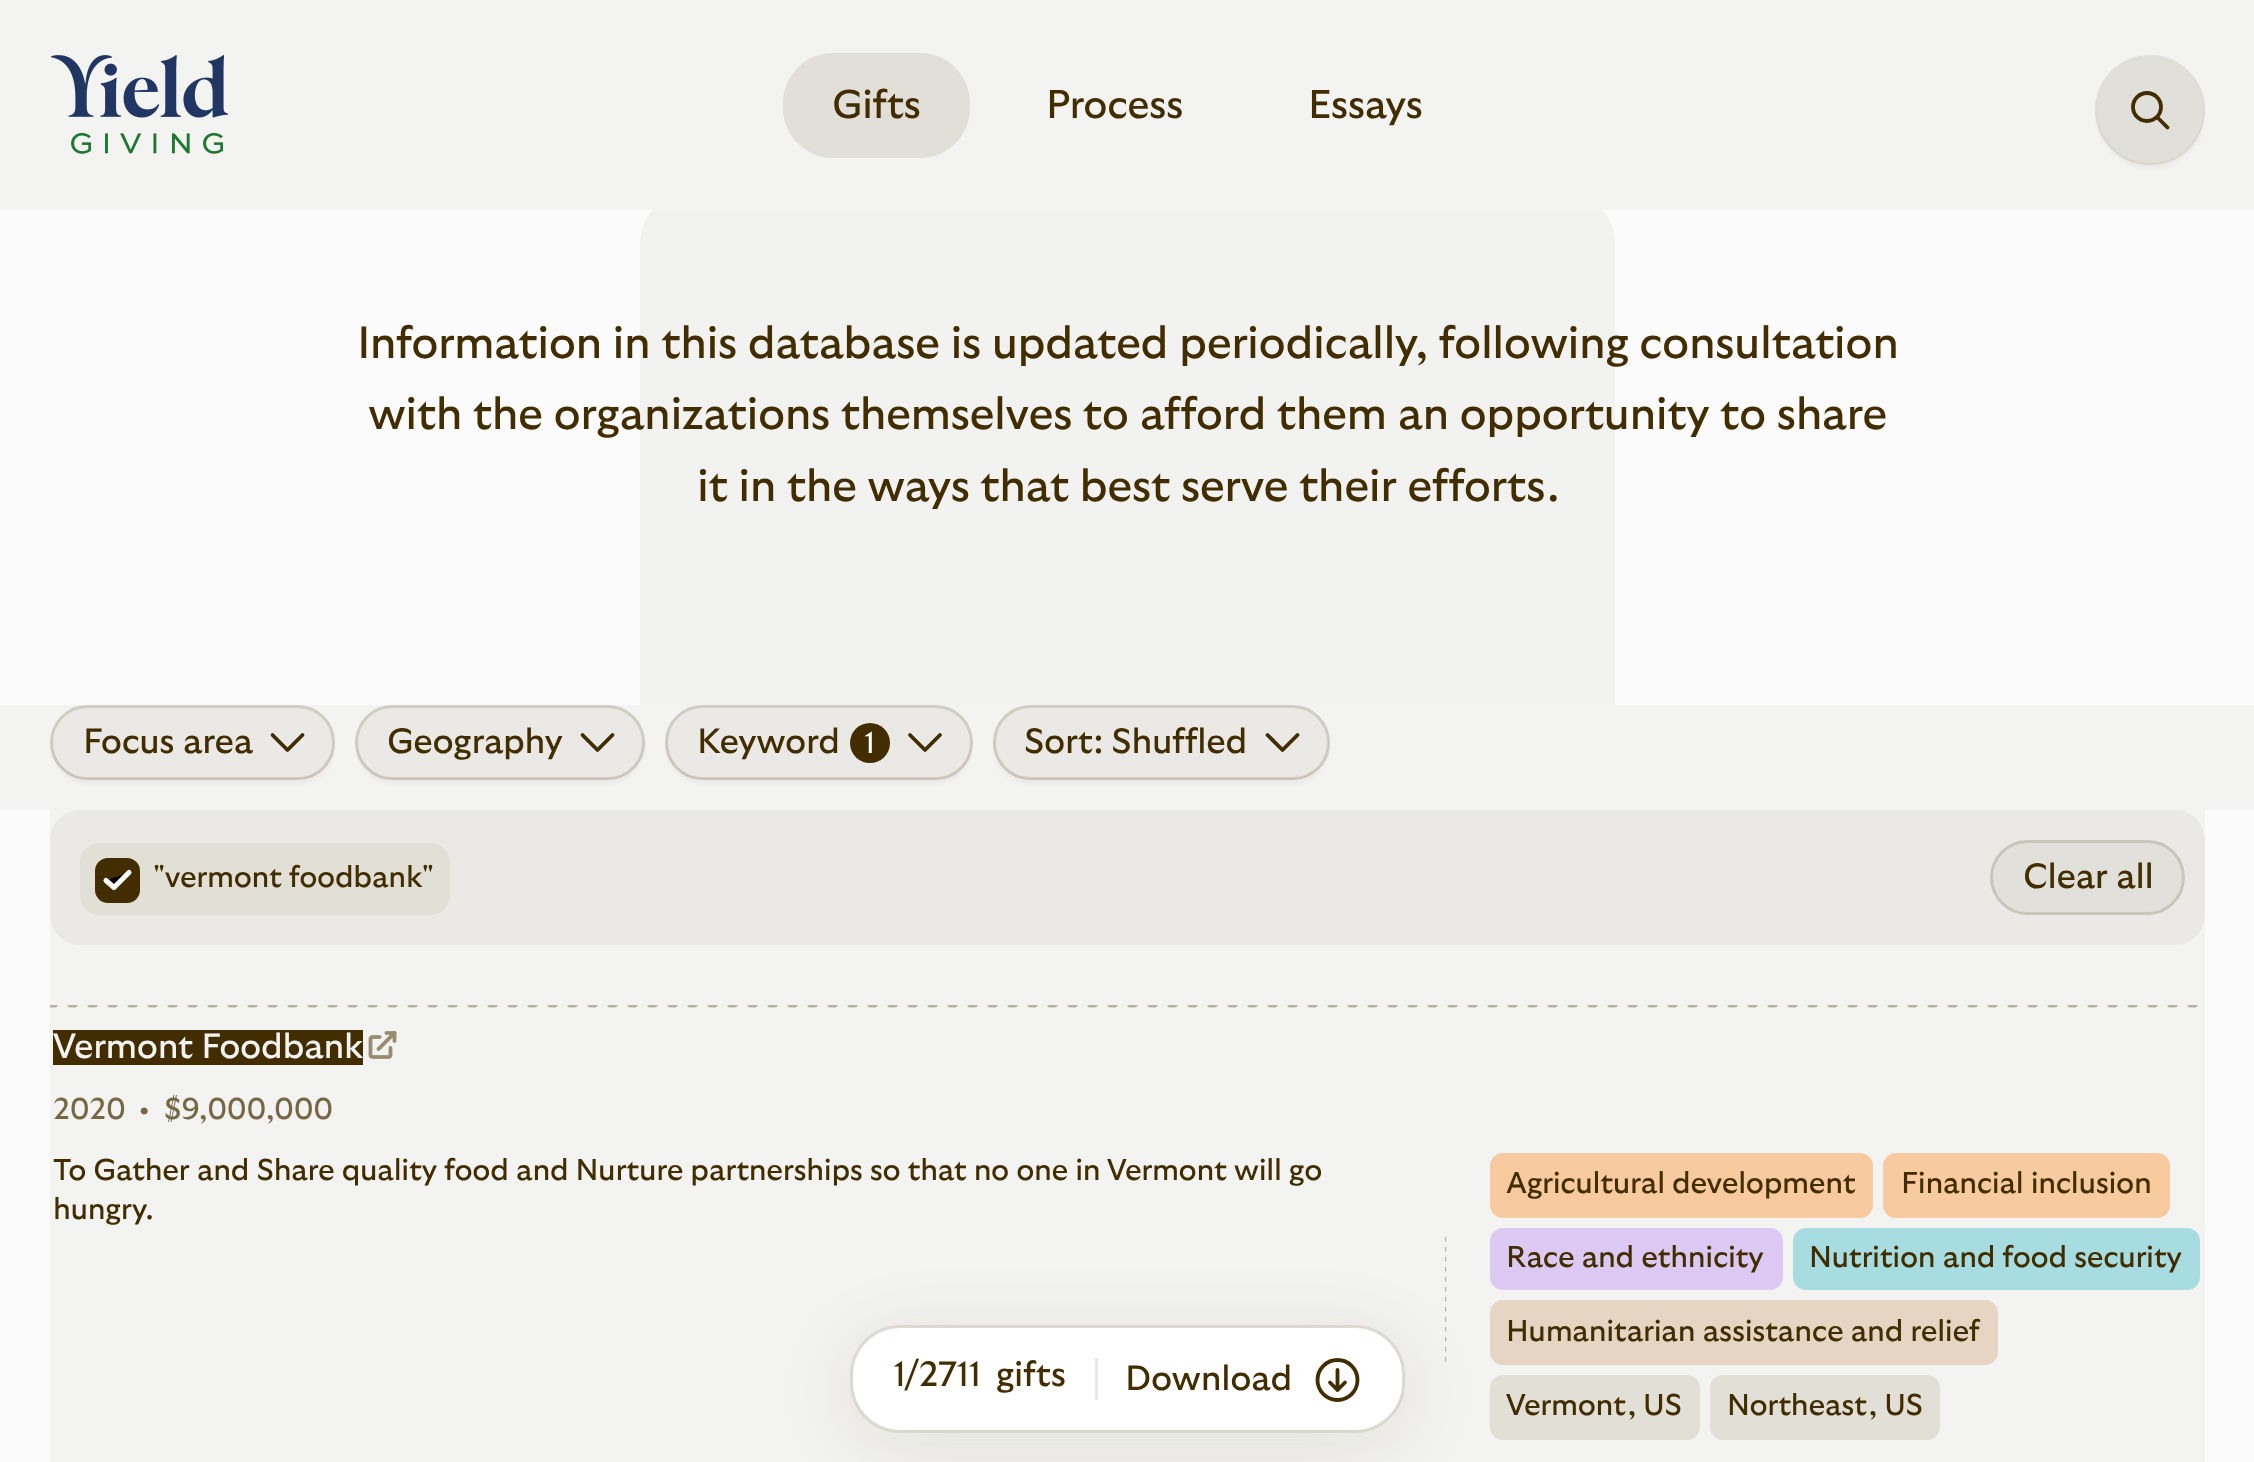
<svg xmlns="http://www.w3.org/2000/svg" width="2254" height="1462" viewBox="0 0 2254 1462">
  <defs>
    <clipPath id="clip1"><path d="M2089 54H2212V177H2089ZM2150.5 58C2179.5 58 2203 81.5 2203 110.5C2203 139.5 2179.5 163 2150.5 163C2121.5 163 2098 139.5 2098 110.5C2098 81.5 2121.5 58 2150.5 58Z" clip-rule="evenodd"/></clipPath>
    <filter id="blur1" x="-50%" y="-200%" width="200%" height="500%"><feGaussianBlur stdDeviation="2.5"/></filter>
    <clipPath id="clip2"><path d="M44 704H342V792H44ZM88 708H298C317.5 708 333 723.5 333 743C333 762.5 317.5 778 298 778H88C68.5 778 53 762.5 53 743C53 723.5 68.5 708 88 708Z" clip-rule="evenodd"/></clipPath>
    <clipPath id="clip3"><path d="M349 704H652V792H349ZM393 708H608C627.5 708 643 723.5 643 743C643 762.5 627.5 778 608 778H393C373.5 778 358 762.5 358 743C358 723.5 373.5 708 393 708Z" clip-rule="evenodd"/></clipPath>
    <clipPath id="clip4"><path d="M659 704H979V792H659ZM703 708H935C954.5 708 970 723.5 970 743C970 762.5 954.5 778 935 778H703C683.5 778 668 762.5 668 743C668 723.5 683.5 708 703 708Z" clip-rule="evenodd"/></clipPath>
    <clipPath id="clip5"><path d="M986 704H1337V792H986ZM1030 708H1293C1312.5 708 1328 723.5 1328 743C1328 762.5 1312.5 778 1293 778H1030C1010.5 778 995 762.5 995 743C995 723.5 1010.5 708 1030 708Z" clip-rule="evenodd"/></clipPath>
    <clipPath id="clip6"><rect x="50" y="1005" width="2155" height="3"/></clipPath>
    <clipPath id="clip7"><rect x="1445" y="1158" width="3" height="287"/></clipPath>
    <clipPath id="clip8"><path d="M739 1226H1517V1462H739ZM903 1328H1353C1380.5 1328 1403 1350.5 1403 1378V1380C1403 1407.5 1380.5 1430 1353 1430H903C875.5 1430 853 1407.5 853 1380V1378C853 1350.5 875.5 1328 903 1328Z" clip-rule="evenodd"/></clipPath>
    <filter id="blur2" x="-50%" y="-200%" width="200%" height="500%"><feGaussianBlur stdDeviation="37.5"/></filter>
  </defs>
  <rect width="100%" height="100%" fill="#fbfbfb"/>
  <rect x="640" y="193" width="975" height="640" rx="50" fill="#f2f2f0"/>
  <rect x="0" y="0" width="2254" height="210" fill="#f3f3f1"/>
  <image x="51" y="55" width="177" height="99" href="img1.png"/>
  <rect x="783" y="53" width="187" height="105" rx="50" fill="#422d00" fill-opacity="0.1"/>
  <text x="832" y="118" font-family="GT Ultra" font-size="40" letter-spacing="-0.5" fill="#422d00">Gifts</text>
  <text x="1046" y="118" font-family="GT Ultra" font-size="40" letter-spacing="-0.5" fill="#422d00">Process</text>
  <text x="1308" y="118" font-family="GT Ultra" font-size="40" letter-spacing="-0.5" fill="#422d00">Essays</text>
  <circle cx="2150" cy="110" r="53.5" fill="#e1dfd9" stroke="#e1dfd9" stroke-width="3"/>
  <path d="M2167.5 127.5L2157.5 117.5" fill="none" stroke="#422d00" stroke-width="3.8" stroke-linecap="round"/>
  <circle cx="2147" cy="107" r="14" fill="none" stroke="#422d00" stroke-width="3.8"/>
  <g clip-path="url(#clip1)">
    <rect x="2098" y="63" width="105" height="105" rx="52.5" fill="#422d00" fill-opacity="0.05" filter="url(#blur1)"/>
  </g>
  <text x="357" y="358" font-family="GT Ultra" font-size="45" letter-spacing="-0.45" fill="#422d00">Information in this database is updated periodically, following consultation</text>
  <text x="368" y="429" font-family="GT Ultra" font-size="45" letter-spacing="-0.45" fill="#422d00">with the organizations themselves to afford them an opportunity to share</text>
  <text x="697" y="501" font-family="GT Ultra" font-size="45" letter-spacing="-0.45" fill="#422d00">it in the ways that best serve their efforts.</text>
  <rect x="0" y="705" width="2254" height="105" fill="#f3f3f1"/>
  <rect x="50" y="705" width="285" height="75" rx="37.5" fill="#eae9e5"/>
  <rect x="51.5" y="706.5" width="282" height="72" rx="36" fill="none" stroke="#422d00" stroke-opacity="0.15" stroke-width="3"/>
  <path d="M272.5 735L287.5 750L302.5 735" fill="none" stroke="#422d00" stroke-width="3.8" stroke-linecap="round" stroke-linejoin="round"/>
  <g clip-path="url(#clip2)">
    <rect x="53" y="713" width="280" height="70" rx="35" fill="#422d00" fill-opacity="0.05" filter="url(#blur1)"/>
  </g>
  <text x="83" y="753" font-family="GT Ultra" font-size="35" letter-spacing="-0.3" fill="#422d00">Focus area</text>
  <rect x="355" y="705" width="290" height="75" rx="37.5" fill="#eae9e5"/>
  <rect x="356.5" y="706.5" width="287" height="72" rx="36" fill="none" stroke="#422d00" stroke-opacity="0.15" stroke-width="3"/>
  <path d="M582.5 735L597.5 750L612.5 735" fill="none" stroke="#422d00" stroke-width="3.8" stroke-linecap="round" stroke-linejoin="round"/>
  <g clip-path="url(#clip3)">
    <rect x="358" y="713" width="285" height="70" rx="35" fill="#422d00" fill-opacity="0.05" filter="url(#blur1)"/>
  </g>
  <text x="387" y="753" font-family="GT Ultra" font-size="35" letter-spacing="-0.3" fill="#422d00">Geography</text>
  <rect x="665" y="705" width="308" height="75" rx="37.5" fill="#eae9e5"/>
  <rect x="666.5" y="706.5" width="305" height="72" rx="36" fill="none" stroke="#422d00" stroke-opacity="0.15" stroke-width="3"/>
  <circle cx="870" cy="743" r="20" fill="#422d00"/>
  <path d="M910 735L925 750L940 735" fill="none" stroke="#422d00" stroke-width="3.8" stroke-linecap="round" stroke-linejoin="round"/>
  <g clip-path="url(#clip4)">
    <rect x="668" y="713" width="302" height="70" rx="35" fill="#422d00" fill-opacity="0.05" filter="url(#blur1)"/>
  </g>
  <text x="697" y="753" font-family="GT Ultra" font-size="35" letter-spacing="-0.3" fill="#422d00">Keyword</text>
  <text x="864" y="753" font-family="GT Ultra" font-size="30" letter-spacing="-0.3" fill="#ffffff">1</text>
  <rect x="993" y="705" width="337" height="75" rx="37.5" fill="#eae9e5"/>
  <rect x="994.5" y="706.5" width="334" height="72" rx="36" fill="none" stroke="#422d00" stroke-opacity="0.15" stroke-width="3"/>
  <path d="M1267.5 735L1282.5 750L1297.5 735" fill="none" stroke="#422d00" stroke-width="3.8" stroke-linecap="round" stroke-linejoin="round"/>
  <g clip-path="url(#clip5)">
    <rect x="995" y="713" width="333" height="70" rx="35" fill="#422d00" fill-opacity="0.05" filter="url(#blur1)"/>
  </g>
  <text x="1024" y="753" font-family="GT Ultra" font-size="35" letter-spacing="-0.3" fill="#422d00">Sort: Shuffled</text>
  <rect x="50" y="810" width="2155" height="652" fill="#f3f3f1"/>
  <rect x="50" y="810" width="2155" height="135" rx="30" fill="#eae9e5"/>
  <rect x="81.5" y="844.5" width="367" height="69" rx="18.5" fill="#e2dfd7" stroke="#e2dfd7" stroke-width="3"/>
  <rect x="97.5" y="860.5" width="40" height="40" rx="10.5" fill="#422d00" stroke="#422d00" stroke-width="5"/>
  <path d="M106 880.5L114 887.5L129 872.5" fill="#000000" stroke="#ffffff" stroke-width="5" stroke-linecap="round" stroke-linejoin="round"/>
  <text x="153" y="887" font-family="GT Ultra" font-size="30" letter-spacing="-0.3" fill="#422d00">"vermont foodbank"</text>
  <rect x="1990" y="840" width="195" height="75" rx="37.5" fill="#e2e0da"/>
  <rect x="1991.5" y="841.5" width="192" height="72" rx="36" fill="none" stroke="#422d00" stroke-opacity="0.15" stroke-width="3"/>
  <text x="2023" y="888" font-family="GT Ultra" font-size="35" letter-spacing="-0.3" fill="#422d00">Clear all</text>
  <g clip-path="url(#clip6)">
    <path d="M50 1005H2205" fill="none" stroke="#b9b2a1" stroke-width="5" stroke-linecap="round" stroke-dasharray="5 15"/>
  </g>
  <rect x="53" y="1030" width="310" height="35" fill="#422d00"/>
  <text x="53" y="1058" font-family="GT Ultra" font-size="35" letter-spacing="-0.3" fill="#f3f3f1">Vermont Foodbank</text>
  <image x="368" y="1031" width="29" height="28" href="img2.png"/>
  <text x="53" y="1119" font-family="GT Ultra" font-size="30" letter-spacing="-0.3" fill="#776745">2020</text>
  <text x="139" y="1119" font-family="GT Ultra" font-size="30" letter-spacing="-0.3" fill="#776745">•</text>
  <text x="164" y="1119" font-family="GT Ultra" font-size="30" letter-spacing="-0.3" fill="#776745">$9,000,000</text>
  <g clip-path="url(#clip7)">
    <path d="M1445 1238V1363" fill="none" stroke="#b9b2a1" stroke-width="2.5" stroke-linecap="round" stroke-dasharray="2.5 7.5"/>
  </g>
  <text x="53" y="1180" font-family="GT Ultra" font-size="30" letter-spacing="-0.3" fill="#422d00">To Gather and Share quality food and Nurture partnerships so that no one in Vermont will go</text>
  <text x="53" y="1219" font-family="GT Ultra" font-size="30" letter-spacing="-0.3" fill="#422d00">hungry.</text>
  <rect x="1491.5" y="1154.5" width="380" height="62" rx="11.5" fill="#f8ca9f" stroke="#f8ca9f" stroke-width="3"/>
  <text x="1506" y="1193" font-family="GT Ultra" font-size="30" letter-spacing="-0.3" fill="#422d00">Agricultural development</text>
  <rect x="1884.5" y="1154.5" width="284" height="62" rx="11.5" fill="#f8ca9f" stroke="#f8ca9f" stroke-width="3"/>
  <text x="1901" y="1193" font-family="GT Ultra" font-size="30" letter-spacing="-0.3" fill="#422d00">Financial inclusion</text>
  <rect x="1491.5" y="1229.5" width="290" height="59" rx="11.5" fill="#dccaf4" stroke="#dccaf4" stroke-width="3"/>
  <text x="1506" y="1267" font-family="GT Ultra" font-size="30" letter-spacing="-0.3" fill="#422d00">Race and ethnicity</text>
  <rect x="1794.5" y="1229.5" width="404" height="59" rx="11.5" fill="#a7dde0" stroke="#a7dde0" stroke-width="3"/>
  <text x="1809" y="1267" font-family="GT Ultra" font-size="30" letter-spacing="-0.3" fill="#422d00">Nutrition and food security</text>
  <rect x="1491.5" y="1301.5" width="505" height="62" rx="11.5" fill="#e6d5c3" stroke="#e6d5c3" stroke-width="3"/>
  <text x="1506" y="1341" font-family="GT Ultra" font-size="30" letter-spacing="-0.3" fill="#422d00">Humanitarian assistance and relief</text>
  <rect x="1491.5" y="1376.5" width="207" height="62" rx="11.5" fill="#e2dfd7" stroke="#e2dfd7" stroke-width="3"/>
  <text x="1506" y="1415" font-family="GT Ultra" font-size="30" letter-spacing="-0.3" fill="#422d00">Vermont, US</text>
  <rect x="1711.5" y="1376.5" width="227" height="62" rx="11.5" fill="#e2dfd7" stroke="#e2dfd7" stroke-width="3"/>
  <text x="1727" y="1415" font-family="GT Ultra" font-size="30" letter-spacing="-0.3" fill="#422d00">Northeast, US</text>
  <rect x="851.5" y="1326.5" width="552" height="105" rx="48.5" fill="#ffffff" stroke="#e1dfd9" stroke-width="3"/>
  <rect x="1095" y="1358" width="3" height="42" fill="#eae9e5"/>
  <circle cx="1337.5" cy="1380" r="20" fill="none" stroke="#422d00" stroke-width="3.8"/>
  <path d="M1345 1382.5L1337.5 1390M1337.5 1390L1330 1382.5M1337.5 1390V1370" fill="none" stroke="#422d00" stroke-width="3.8" stroke-linecap="round" stroke-linejoin="round"/>
  <g clip-path="url(#clip8)">
    <rect x="853" y="1340" width="550" height="103" rx="50" fill="#422d00" fill-opacity="0.1" filter="url(#blur2)"/>
  </g>
  <text x="893" y="1386" font-family="GT Ultra" font-size="35" letter-spacing="-0.3" fill="#422d00">1/2711</text>
  <text x="996" y="1386" font-family="GT Ultra" font-size="35" letter-spacing="-0.3" fill="#422d00">gifts</text>
  <text x="1125" y="1390" font-family="GT Ultra" font-size="35" letter-spacing="-0.3" fill="#422d00">Download</text>
</svg>
